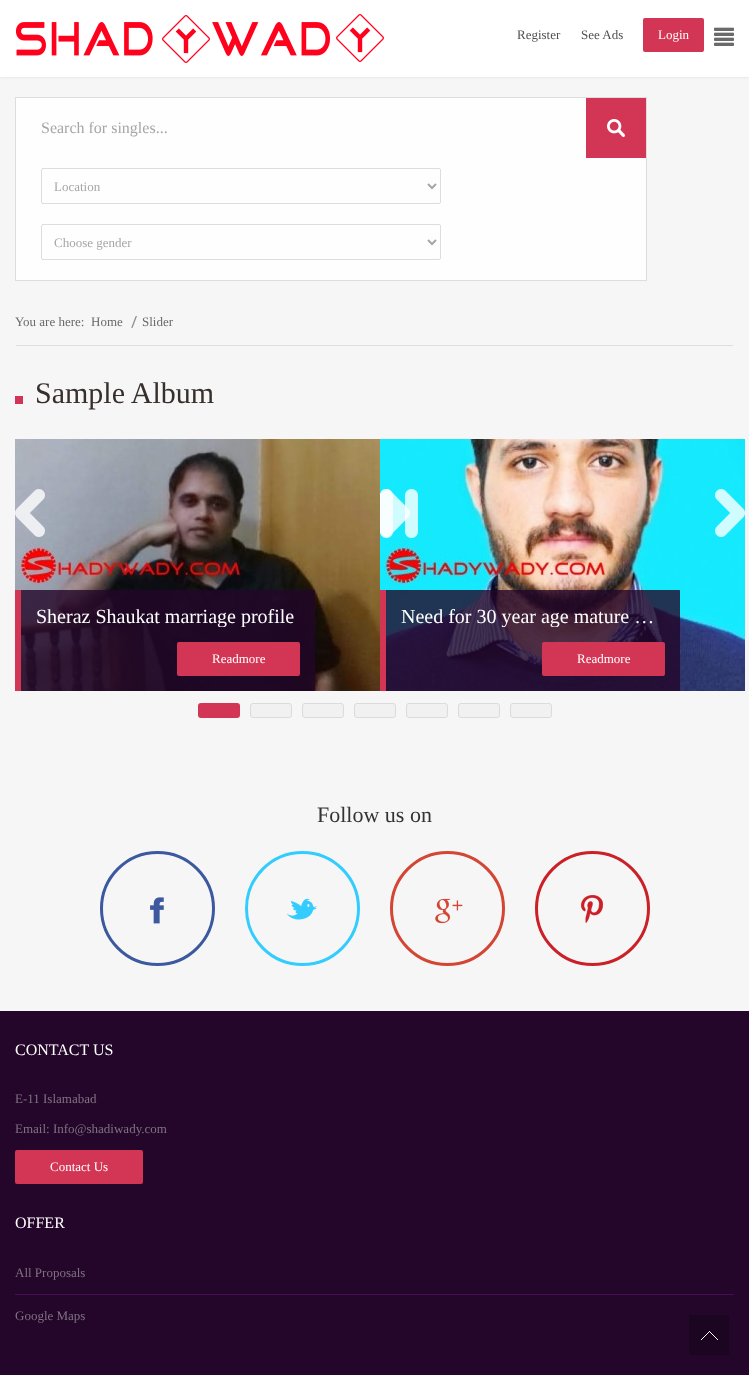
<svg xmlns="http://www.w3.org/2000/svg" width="749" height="1375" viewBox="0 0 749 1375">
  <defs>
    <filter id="blur1" x="-50%" y="-200%" width="200%" height="500%"><feGaussianBlur stdDeviation="1.5"/></filter>
    <clipPath id="clip1"><rect x="36" y="605" width="264" height="22"/></clipPath>
    <clipPath id="clip2"><rect x="401" y="605" width="264" height="22"/></clipPath>
  </defs>
  <rect width="100%" height="100%" fill="#f6f6f6"/>
  <rect x="0" y="0" width="749" height="77" fill="#000000" fill-opacity="0.1" filter="url(#blur1)"/>
  <rect x="0" y="0" width="749" height="77" fill="#ffffff"/>
  <image x="15" y="14" width="369" height="49" href="img1.png"/>
  <text x="517" y="39" font-family="Liberation Serif" font-size="13" fill="#505050">Register</text>
  <text x="581" y="39" font-family="Liberation Serif" font-size="13" fill="#505050">See Ads</text>
  <rect x="643" y="18" width="61" height="34" rx="2" fill="#d33655"/>
  <text x="658" y="39" font-family="Liberation Serif" font-size="13" fill="#ffffff">Login</text>
  <image x="714" y="27" width="20" height="19" href="img2.png"/>
  <rect x="15.5" y="97.5" width="631" height="183" fill="#fefefe" stroke="#dddddd"/>
  <text x="41" y="133" font-family="Liberation Serif" font-size="16" fill="#a6a6a6">Search for singles...</text>
  <rect x="586" y="98" width="60" height="60" fill="#d33655"/>
  <image x="607" y="119" width="18" height="18" href="img3.png"/>
  <rect x="41.5" y="168.5" width="399" height="35" rx="1.5" fill="none" stroke="#dddddd"/>
  <path d="M428 184L432 188L436 184" fill="none" stroke="#a6a6a6" stroke-width="2"/>
  <text x="54" y="191" font-family="Liberation Serif" font-size="13" fill="#a6a6a6">Location</text>
  <rect x="41.5" y="224.5" width="399" height="35" rx="1.5" fill="none" stroke="#dddddd"/>
  <path d="M428 240L432 244L436 240" fill="none" stroke="#a6a6a6" stroke-width="2"/>
  <text x="54" y="247" font-family="Liberation Serif" font-size="13" fill="#a6a6a6">Choose gender</text>
  <rect x="16" y="345" width="717" height="1" fill="#dddddd"/>
  <text x="15" y="326" font-family="Liberation Serif" font-size="13" fill="#6a6a6a">You are here:</text>
  <text x="91" y="326" font-family="Liberation Serif" font-size="13" fill="#6a6a6a">Home</text>
  <image x="131" y="316" width="6" height="12" href="img4.png"/>
  <text x="142" y="326" font-family="Liberation Serif" font-size="13" fill="#6a6a6a">Slider</text>
  <rect x="15" y="396" width="8" height="8" fill="#d33655"/>
  <text x="35" y="403" font-family="Liberation Serif" font-size="30" fill="#372f2b">Sample Album</text>
  <image x="15" y="439" width="365" height="252" href="img9.png"/>
  <image x="15" y="489" width="30" height="48" href="img5.png"/>
  <image x="380" y="439" width="365" height="252" href="img10.png"/>
  <image x="380" y="489" width="30" height="48" href="img6.png"/>
  <image x="380" y="489" width="38" height="49" href="img7.png"/>
  <image x="715" y="489" width="30" height="48" href="img8.png"/>
  <rect x="21" y="590" width="294" height="101" fill="#230629" fill-opacity="0.8"/>
  <rect x="15" y="590" width="6" height="101" fill="#d33655"/>
  <g clip-path="url(#clip1)">
    <text x="36" y="623" font-family="Liberation Serif" font-size="20" fill="#ffffff">Sheraz Shaukat marriage profile</text>
  </g>
  <rect x="177" y="642" width="123" height="34" rx="2" fill="#d33655"/>
  <text x="212" y="663" font-family="Liberation Serif" font-size="13" fill="#ffffff">Readmore</text>
  <rect x="386" y="590" width="294" height="101" fill="#230629" fill-opacity="0.8"/>
  <rect x="380" y="590" width="6" height="101" fill="#d33655"/>
  <g clip-path="url(#clip2)">
    <text x="401" y="623" font-family="Liberation Serif" font-size="20" fill="#ffffff">Need for 30 year age mature …</text>
  </g>
  <rect x="542" y="642" width="123" height="34" rx="2" fill="#d33655"/>
  <text x="577" y="663" font-family="Liberation Serif" font-size="13" fill="#ffffff">Readmore</text>
  <rect x="198" y="703" width="42" height="15" rx="3" fill="#d33655"/>
  <rect x="250.5" y="703.5" width="41" height="14" rx="2.5" fill="#f1f1f1" stroke="#dbdbdb"/>
  <rect x="302.5" y="703.5" width="41" height="14" rx="2.5" fill="#f1f1f1" stroke="#dbdbdb"/>
  <rect x="354.5" y="703.5" width="41" height="14" rx="2.5" fill="#f1f1f1" stroke="#dbdbdb"/>
  <rect x="406.5" y="703.5" width="41" height="14" rx="2.5" fill="#f1f1f1" stroke="#dbdbdb"/>
  <rect x="458.5" y="703.5" width="41" height="14" rx="2.5" fill="#f1f1f1" stroke="#dbdbdb"/>
  <rect x="510.5" y="703.5" width="41" height="14" rx="2.5" fill="#f1f1f1" stroke="#dbdbdb"/>
  <text x="317" y="822" font-family="Liberation Serif" font-size="22" fill="#333333">Follow us on</text>
  <image x="150" y="897" width="14" height="27" href="img11.png"/>
  <circle cx="157.5" cy="908.5" r="56" fill="none" stroke="#3c599f" stroke-width="3"/>
  <image x="286" y="898" width="31" height="22" href="img12.png"/>
  <circle cx="302.5" cy="908.5" r="56" fill="none" stroke="#32ccfe" stroke-width="3"/>
  <image x="435" y="898" width="28" height="26" href="img13.png"/>
  <circle cx="447.5" cy="908.5" r="56" fill="none" stroke="#d34634" stroke-width="3"/>
  <image x="581" y="895" width="22" height="28" href="img14.png"/>
  <circle cx="592.5" cy="908.5" r="56" fill="none" stroke="#cb2028" stroke-width="3"/>
  <rect x="0" y="1011" width="749" height="364" fill="#230629"/>
  <text x="15" y="1055" font-family="Liberation Serif" font-size="16" fill="#ffffff">CONTACT US</text>
  <text x="15" y="1103" font-family="Liberation Serif" font-size="13" fill="#807283">E-11 Islamabad</text>
  <text x="15" y="1133" font-family="Liberation Serif" font-size="13" fill="#807283">Email: Info@shadiwady.com</text>
  <rect x="15" y="1150" width="128" height="34" rx="2" fill="#d33655"/>
  <text x="50" y="1171" font-family="Liberation Serif" font-size="13" fill="#ffffff">Contact Us</text>
  <text x="15" y="1228" font-family="Liberation Serif" font-size="16" fill="#ffffff">OFFER</text>
  <rect x="15" y="1294" width="719" height="1" fill="#490d55"/>
  <text x="15" y="1277" font-family="Liberation Serif" font-size="13" fill="#807283">All Proposals</text>
  <text x="15" y="1320" font-family="Liberation Serif" font-size="13" fill="#807283">Google Maps</text>
  <rect x="689" y="1315" width="40" height="40" fill="#1c0521"/>
  <image x="701" y="1331" width="17" height="9" href="img15.png"/>
</svg>
